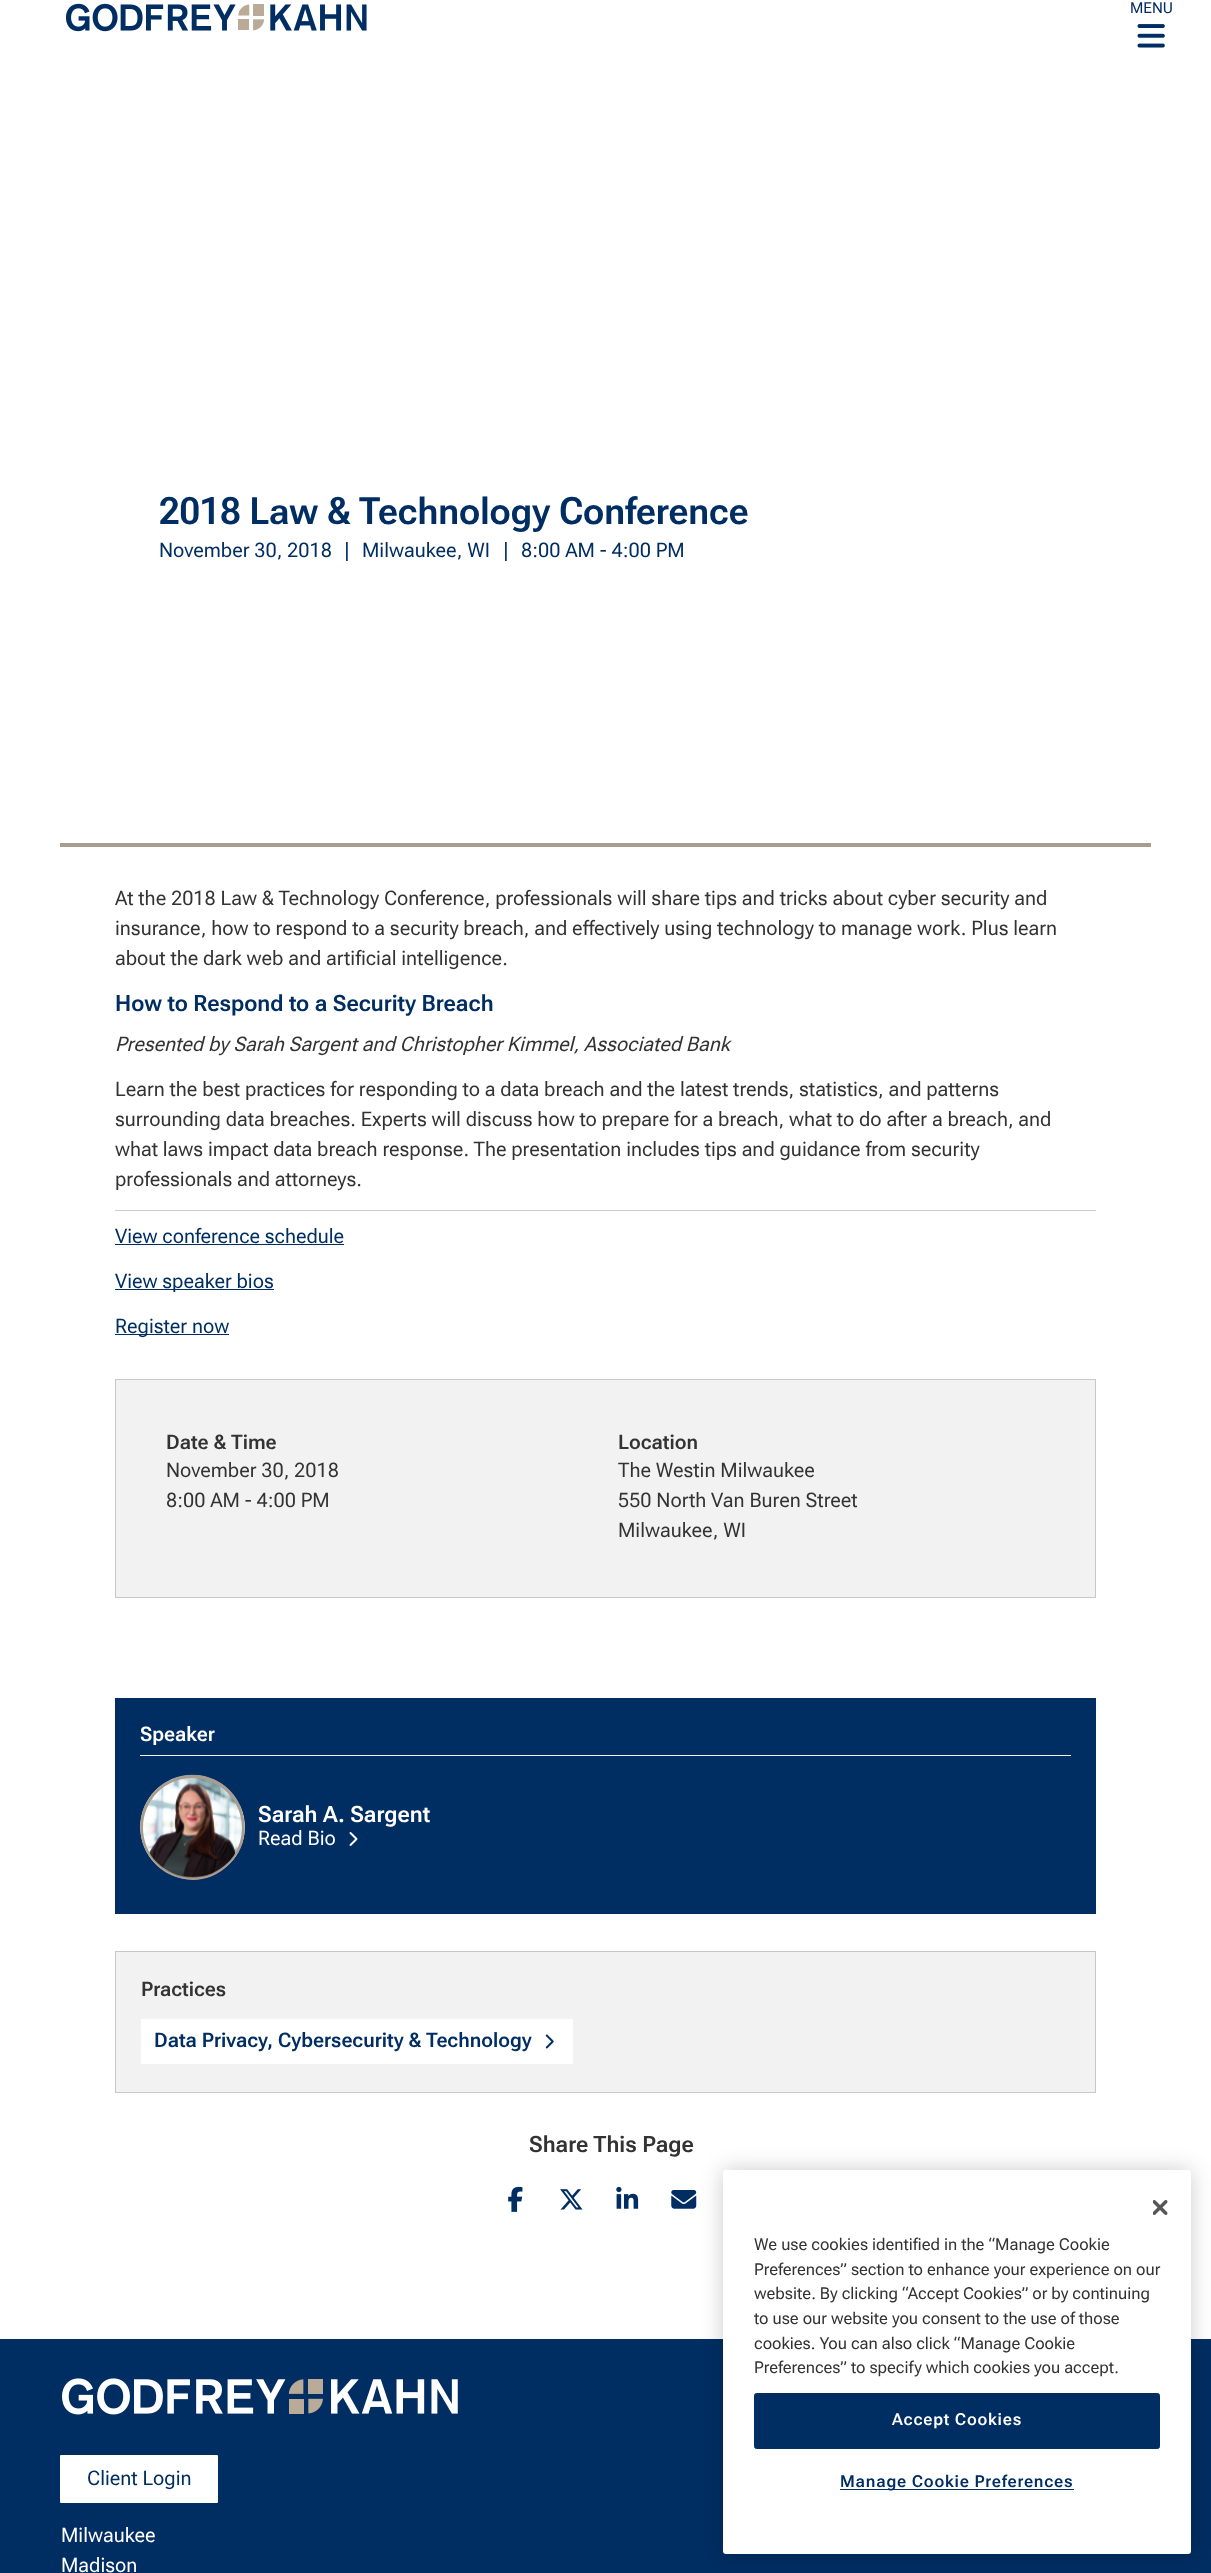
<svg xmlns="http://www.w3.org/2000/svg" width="1211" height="2573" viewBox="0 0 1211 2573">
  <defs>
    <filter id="blur1" x="-50%" y="-200%" width="200%" height="500%"><feGaussianBlur stdDeviation="11"/></filter>
  </defs>
  <rect width="100%" height="100%" fill="#ffffff"/>
  <image x="65" y="3" width="302" height="29" href="img1.png"/>
  <text x="1130" y="13" font-family="'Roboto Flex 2'" font-size="15" fill="#002d62">MENU</text>
  <image x="1137" y="24" width="28" height="24" href="img2.png"/>
  <rect x="60" y="843" width="1091" height="4" fill="#aa9c8f"/>
  <text x="159" y="524" font-family="'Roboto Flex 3'" font-size="37.5" font-weight="600" fill="#002d62">2018 Law &amp; Technology Conference</text>
  <text x="159" y="557" font-family="Roboto Flex" font-size="20" fill="#002d62">November 30, 2018</text>
  <text x="344" y="557" font-family="Roboto Flex" font-size="20" fill="#002d62">|</text>
  <text x="362" y="557" font-family="Roboto Flex" font-size="20" fill="#002d62">Milwaukee, WI</text>
  <text x="503" y="557" font-family="Roboto Flex" font-size="20" fill="#002d62">|</text>
  <text x="521" y="557" font-family="Roboto Flex" font-size="20" fill="#002d62">8:00 AM - 4:00 PM</text>
  <text x="115" y="905" font-family="Roboto Flex" font-size="20" fill="#333333">At the 2018 Law &amp; Technology Conference, professionals will share tips and tricks about cyber security and</text>
  <text x="115" y="935" font-family="Roboto Flex" font-size="20" fill="#333333">insurance, how to respond to a security breach, and effectively using technology to manage work. Plus learn</text>
  <text x="115" y="965" font-family="Roboto Flex" font-size="20" fill="#333333">about the dark web and artificial intelligence.</text>
  <text x="115" y="1011" font-family="Roboto Flex" font-size="22.5" font-weight="600" fill="#002d62">How to Respond to a Security Breach</text>
  <text x="115" y="1051" font-family="Roboto Flex" font-size="20" font-style="italic" fill="#333333">Presented by Sarah Sargent and Christopher Kimmel, Associated Bank</text>
  <text x="115" y="1096" font-family="Roboto Flex" font-size="20" fill="#333333">Learn the best practices for responding to a data breach and the latest trends, statistics, and patterns</text>
  <text x="115" y="1126" font-family="Roboto Flex" font-size="20" fill="#333333">surrounding data breaches. Experts will discuss how to prepare for a breach, what to do after a breach, and</text>
  <text x="115" y="1156" font-family="Roboto Flex" font-size="20" fill="#333333">what laws impact data breach response. The presentation includes tips and guidance from security</text>
  <text x="115" y="1186" font-family="Roboto Flex" font-size="20" fill="#333333">professionals and attorneys.</text>
  <rect x="115" y="1210" width="981" height="1" fill="#cccccc"/>
  <text x="115" y="1243" font-family="Roboto Flex" font-size="20" fill="#002d62">View conference schedule</text>
  <rect x="115" y="1244" width="229" height="1" fill="#002d62"/>
  <rect x="115" y="1289" width="159" height="1" fill="#002d62"/>
  <text x="115" y="1288" font-family="Roboto Flex" font-size="20" fill="#002d62">View speaker bios</text>
  <rect x="115" y="1334" width="114" height="1" fill="#002d62"/>
  <text x="115" y="1333" font-family="Roboto Flex" font-size="20" fill="#002d62">Register now</text>
  <rect x="115.5" y="1379.5" width="980" height="218" fill="#f2f2f2" stroke="#c8c8c8"/>
  <text x="166" y="1449" font-family="'Roboto Flex 2'" font-size="20" font-weight="600" fill="#333333">Date &amp; Time</text>
  <text x="166" y="1477" font-family="Roboto Flex" font-size="20" fill="#333333">November 30, 2018</text>
  <text x="166" y="1507" font-family="Roboto Flex" font-size="20" fill="#333333">8:00 AM - 4:00 PM</text>
  <text x="618" y="1449" font-family="'Roboto Flex 2'" font-size="20" font-weight="600" fill="#333333">Location</text>
  <text x="618" y="1477" font-family="Roboto Flex" font-size="20" fill="#333333">The Westin Milwaukee</text>
  <text x="618" y="1507" font-family="Roboto Flex" font-size="20" fill="#333333">550 North Van Buren Street</text>
  <text x="618" y="1537" font-family="Roboto Flex" font-size="20" fill="#333333">Milwaukee, WI</text>
  <rect x="115" y="1698" width="981" height="216" fill="#002d62"/>
  <text x="140" y="1741" font-family="'Roboto Flex 2'" font-size="20" font-weight="600" fill="#ffffff">Speaker</text>
  <rect x="140" y="1755" width="931" height="1" fill="#f2f2f2"/>
  <image x="140" y="1774" width="105" height="106" href="img3.png"/>
  <path d="M192 1775C241 1775 263 1835 227 1866C218 1875 205 1880 193 1880C144 1879 122 1820 158 1788C167 1780 180 1775 192 1775ZM192 1778C165 1778 143 1800 143 1828C143 1855 165 1877 192 1877C220 1877 242 1855 242 1828C242 1800 220 1778 192 1778Z" fill="#aa9c8f" fill-rule="evenodd"/>
  <image x="149" y="1783" width="87" height="95" href="img4.png"/>
  <text x="258" y="1822" font-family="Roboto Flex" font-size="22.5" font-weight="600" fill="#ffffff">Sarah A. Sargent</text>
  <text x="258" y="1845" font-family="Roboto Flex" font-size="20" fill="#ffffff">Read Bio</text>
  <image x="349" y="1832" width="9" height="14" href="img5.png"/>
  <rect x="115.5" y="1951.5" width="980" height="141" fill="#f2f2f2" stroke="#c8c8c8"/>
  <text x="141" y="1996" font-family="'Roboto Flex 2'" font-size="20" font-weight="600" fill="#333333">Practices</text>
  <rect x="141" y="2019" width="432" height="45" fill="#ffffff"/>
  <text x="154" y="2047" font-family="'Roboto Flex 2'" font-size="20" font-weight="600" fill="#002d62">Data Privacy, Cybersecurity &amp; Technology</text>
  <image x="545" y="2034" width="9" height="15" href="img6.png"/>
  <text x="529" y="2152" font-family="Roboto Flex" font-size="22.5" font-weight="600" fill="#333333">Share This Page</text>
  <image x="508" y="2186" width="15" height="26" href="img7.png"/>
  <image x="560" y="2189" width="23" height="21" href="img8.png"/>
  <image x="616" y="2186" width="23" height="23" href="img9.png"/>
  <image x="671" y="2190" width="26" height="19" href="img10.png"/>
  <rect x="0" y="2339" width="1211" height="234" fill="#002d62"/>
  <rect x="723" y="2170" width="468" height="384" rx="3" fill="#000000" fill-opacity="0.2" filter="url(#blur1)"/>
  <rect x="723" y="2170" width="468" height="384" rx="3" fill="#ffffff"/>
  <image x="1153" y="2200" width="15" height="15" href="img11.png"/>
  <text x="754" y="2250" font-family="'Roboto Flex 3'" font-size="16.4" fill="#333333">We use cookies identified in the “Manage Cookie</text>
  <text x="754" y="2275" font-family="'Roboto Flex 3'" font-size="16.4" fill="#333333">Preferences” section to enhance your experience on our</text>
  <text x="754" y="2299" font-family="'Roboto Flex 3'" font-size="16.4" fill="#333333">website. By clicking “Accept Cookies” or by continuing</text>
  <text x="754" y="2324" font-family="'Roboto Flex 3'" font-size="16.4" fill="#333333">to use our website you consent to the use of those</text>
  <text x="754" y="2349" font-family="'Roboto Flex 3'" font-size="16.4" fill="#333333">cookies. You can also click “Manage Cookie</text>
  <text x="754" y="2373" font-family="'Roboto Flex 3'" font-size="16.4" fill="#333333">Preferences” to specify which cookies you accept.</text>
  <rect x="754.5" y="2393.5" width="405" height="55" rx="2" fill="#002d62" stroke="#002d62"/>
  <text x="892" y="2425" font-family="'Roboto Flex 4'" font-size="16.4" font-weight="600" letter-spacing="0.8" fill="#ffffff">Accept Cookies</text>
  <rect x="840" y="2489" width="234" height="1" fill="#002d62"/>
  <text x="840" y="2487" font-family="'Roboto Flex 4'" font-size="16.4" font-weight="600" letter-spacing="0.8" fill="#002d62">Manage Cookie Preferences</text>
  <image x="62" y="2378" width="396" height="37" href="img12.png"/>
  <rect x="60" y="2455" width="158" height="48" rx="1" fill="#ffffff"/>
  <text x="87" y="2485" font-family="Roboto Flex" font-size="20" fill="#002d62">Client Login</text>
  <text x="61" y="2542" font-family="Roboto Flex" font-size="20" fill="#ffffff">Milwaukee</text>
  <text x="61" y="2572" font-family="Roboto Flex" font-size="20" fill="#ffffff">Madison</text>
</svg>
